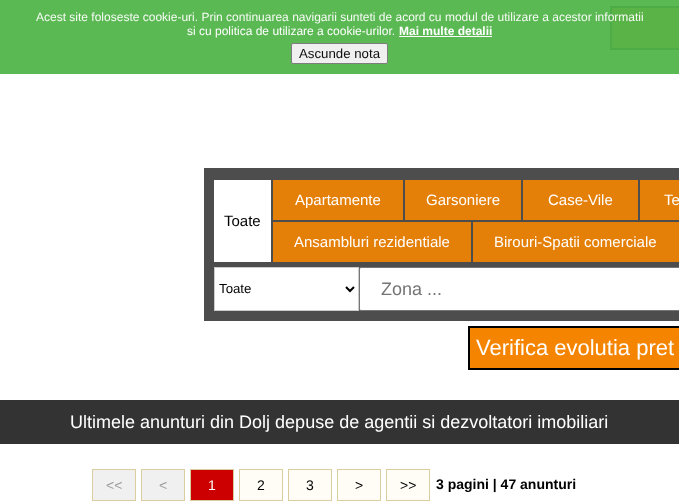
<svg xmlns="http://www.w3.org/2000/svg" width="679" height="503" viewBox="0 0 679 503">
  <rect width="100%" height="100%" fill="#ffffff"/>
  <rect x="0" y="0" width="679" height="74" fill="#5bb953"/>
  <rect x="611" y="7" width="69" height="42" fill="#5ab346" stroke="#4eac46" stroke-width="2"/>
  <text x="36" y="21" font-family="Liberation Sans" font-size="12" fill="#f7fbf6">Acest site foloseste cookie-uri. Prin continuarea navigarii sunteti de acord cu modul de utilizare a acestor informatii</text>
  <text x="187" y="35" font-family="Liberation Sans" font-size="12" fill="#ffffff">si cu politica de utilizare a cookie-urilor.</text>
  <text x="399" y="35" font-family="Liberation Sans" font-size="12" font-weight="bold" fill="#ffffff">Mai multe detalii</text>
  <rect x="399" y="36" width="93" height="1" fill="#ffffff"/>
  <rect x="291.5" y="43.5" width="96" height="20" rx="1.5" fill="#f0f0f0" stroke="#7d7d7d"/>
  <text x="299" y="58" font-family="Liberation Sans" font-size="13.25" fill="#0d0d0d">Ascunde nota</text>
  <rect x="204" y="168" width="475" height="153" fill="#4d4d4d"/>
  <rect x="214" y="180" width="57" height="82" fill="#ffffff"/>
  <text x="224" y="226" font-family="Liberation Sans" font-size="15" fill="#000000">Toate</text>
  <rect x="273" y="180" width="130" height="40" fill="#e47f08"/>
  <text x="295" y="205" font-family="Liberation Sans" font-size="15" fill="#ffffff">Apartamente</text>
  <rect x="405" y="180" width="116" height="40" fill="#e47f08"/>
  <text x="426" y="205" font-family="Liberation Sans" font-size="15" fill="#ffffff">Garsoniere</text>
  <rect x="523" y="180" width="115" height="40" fill="#e47f08"/>
  <text x="548" y="205" font-family="Liberation Sans" font-size="15" fill="#ffffff">Case-Vile</text>
  <rect x="640" y="180" width="39" height="40" fill="#e47f08"/>
  <text x="664" y="205" font-family="Liberation Sans" font-size="15" fill="#ffffff">Te</text>
  <rect x="273" y="222" width="198" height="40" fill="#e47f08"/>
  <text x="294" y="247" font-family="Liberation Sans" font-size="15" fill="#ffffff">Ansambluri rezidentiale</text>
  <rect x="473" y="222" width="206" height="40" fill="#e47f08"/>
  <text x="494" y="247" font-family="Liberation Sans" font-size="15" fill="#ffffff">Birouri-Spatii comerciale</text>
  <rect x="214.5" y="267.5" width="144" height="43" fill="#ffffff" stroke="#cccccc"/>
  <path d="M346 287L350 291L354 287" fill="none" stroke="#000000" stroke-width="2"/>
  <text x="219" y="293" font-family="Liberation Sans" font-size="13.25" fill="#000000">Toate</text>
  <rect x="359.5" y="267.5" width="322" height="43" rx="1.5" fill="#ffffff" stroke="#767676"/>
  <text x="381" y="295" font-family="Liberation Sans" font-size="18" fill="#757575">Zona ...</text>
  <rect x="469" y="327" width="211" height="42" fill="#f58400" stroke="#000000" stroke-width="2"/>
  <text x="476" y="355" font-family="Liberation Sans" font-size="22" fill="#ffffff">Verifica evolutia pret</text>
  <rect x="0" y="400" width="679" height="44" fill="#333333"/>
  <text x="70" y="428" font-family="Liberation Sans" font-size="18" fill="#ffffff">Ultimele anunturi din Dolj depuse de agentii si dezvoltatori imobiliari</text>
  <rect x="92.5" y="469.5" width="43" height="31" fill="#f0f0f0" stroke="#dace9f"/>
  <text x="106" y="490" font-family="Liberation Sans" font-size="14" fill="#999999">&lt;&lt;</text>
  <rect x="141.5" y="469.5" width="43" height="31" fill="#f0f0f0" stroke="#dace9f"/>
  <text x="159" y="490" font-family="Liberation Sans" font-size="14" fill="#999999">&lt;</text>
  <rect x="190.5" y="469.5" width="43" height="31" fill="#cc0000" stroke="#dace9f"/>
  <text x="208" y="490" font-family="Liberation Sans" font-size="14" fill="#ffffff">1</text>
  <rect x="239.5" y="469.5" width="43" height="31" fill="#fffdf6" stroke="#dace9f"/>
  <text x="257" y="490" font-family="Liberation Sans" font-size="14" fill="#000000">2</text>
  <rect x="288.5" y="469.5" width="43" height="31" fill="#fffdf6" stroke="#dace9f"/>
  <text x="306" y="490" font-family="Liberation Sans" font-size="14" fill="#000000">3</text>
  <rect x="337.5" y="469.5" width="43" height="31" fill="#fffdf6" stroke="#dace9f"/>
  <text x="355" y="490" font-family="Liberation Sans" font-size="14" fill="#000000">&gt;</text>
  <rect x="386.5" y="469.5" width="43" height="31" fill="#fffdf6" stroke="#dace9f"/>
  <text x="400" y="490" font-family="Liberation Sans" font-size="14" fill="#000000">&gt;&gt;</text>
  <text x="436" y="489" font-family="Liberation Sans" font-size="14" font-weight="bold" fill="#000000">3 pagini | 47 anunturi</text>
</svg>
